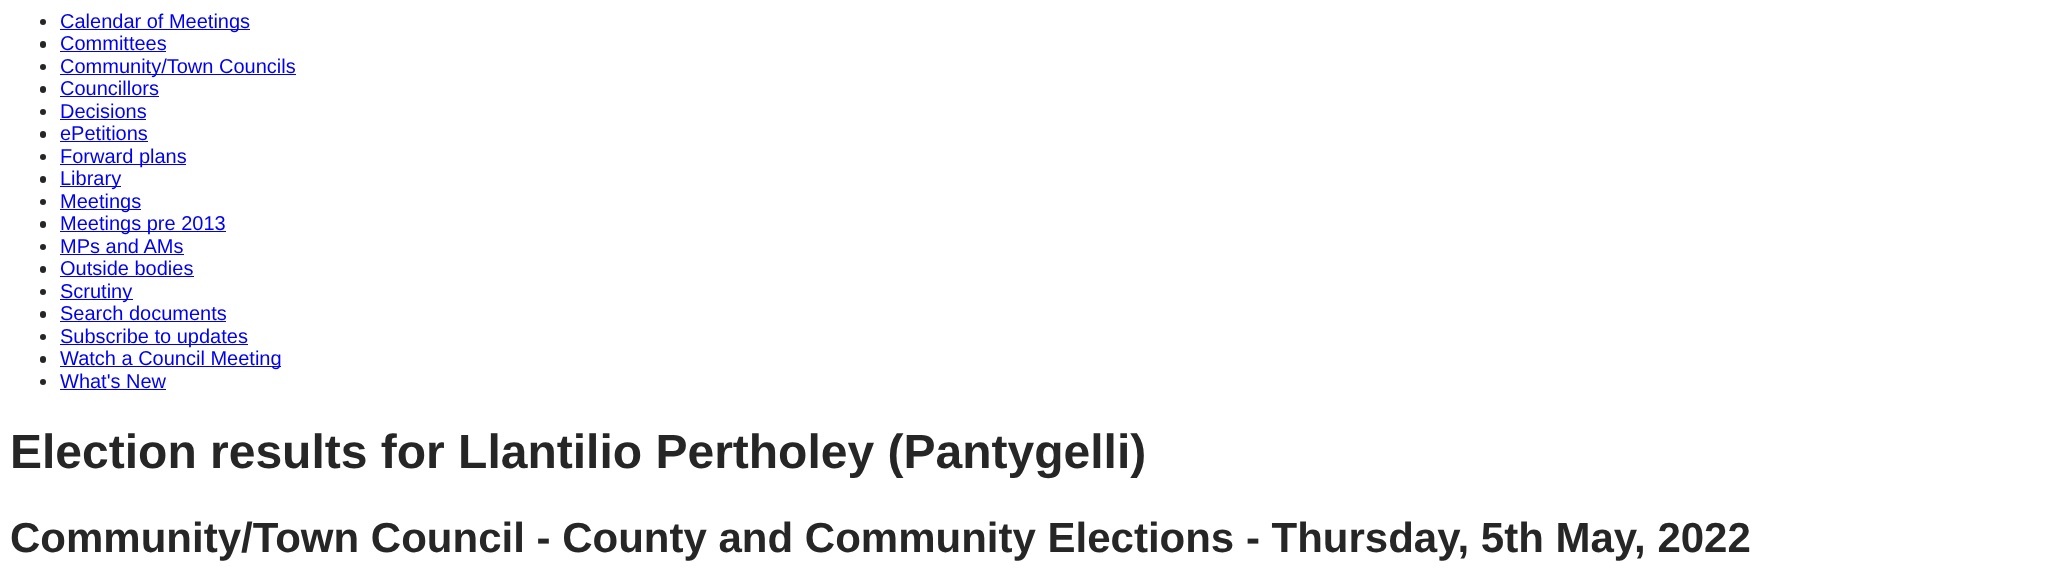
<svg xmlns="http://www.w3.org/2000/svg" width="2060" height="585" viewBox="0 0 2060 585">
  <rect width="100%" height="100%" fill="#ffffff"/>
  <circle cx="43" cy="22" r="3" fill="#262626"/>
  <rect x="60" y="29" width="190" height="1" fill="#0000ee"/>
  <text x="60" y="28" font-family="Liberation Sans" font-size="20" fill="#0000ee">Calendar of Meetings</text>
  <rect x="40" y="41" width="6" height="7" rx="3" fill="#262626"/>
  <text x="60" y="50" font-family="Liberation Sans" font-size="20" fill="#0000ee">Committees</text>
  <rect x="60" y="51" width="106" height="1" fill="#0000ee"/>
  <circle cx="43" cy="67" r="3" fill="#262626"/>
  <rect x="60" y="74" width="236" height="1" fill="#0000ee"/>
  <text x="60" y="73" font-family="Liberation Sans" font-size="20" fill="#0000ee">Community/Town Councils</text>
  <rect x="40" y="86" width="6" height="7" rx="3" fill="#262626"/>
  <text x="60" y="95" font-family="Liberation Sans" font-size="20" fill="#0000ee">Councillors</text>
  <rect x="60" y="96" width="99" height="1" fill="#0000ee"/>
  <circle cx="43" cy="112" r="3" fill="#262626"/>
  <text x="60" y="118" font-family="Liberation Sans" font-size="20" fill="#0000ee">Decisions</text>
  <rect x="60" y="119" width="86" height="1" fill="#0000ee"/>
  <rect x="40" y="131" width="6" height="7" rx="3" fill="#262626"/>
  <text x="60" y="140" font-family="Liberation Sans" font-size="20" fill="#0000ee">ePetitions</text>
  <rect x="60" y="141" width="88" height="1" fill="#0000ee"/>
  <circle cx="43" cy="157" r="3" fill="#262626"/>
  <rect x="60" y="164" width="126" height="1" fill="#0000ee"/>
  <text x="60" y="163" font-family="Liberation Sans" font-size="20" fill="#0000ee">Forward plans</text>
  <rect x="40" y="176" width="6" height="7" rx="3" fill="#262626"/>
  <rect x="60" y="186" width="61" height="1" fill="#0000ee"/>
  <text x="60" y="185" font-family="Liberation Sans" font-size="20" fill="#0000ee">Library</text>
  <circle cx="43" cy="202" r="3" fill="#262626"/>
  <rect x="60" y="209" width="81" height="1" fill="#0000ee"/>
  <text x="60" y="208" font-family="Liberation Sans" font-size="20" fill="#0000ee">Meetings</text>
  <rect x="40" y="221" width="6" height="7" rx="3" fill="#262626"/>
  <rect x="60" y="231" width="166" height="1" fill="#0000ee"/>
  <text x="60" y="230" font-family="Liberation Sans" font-size="20" fill="#0000ee">Meetings pre 2013</text>
  <circle cx="43" cy="247" r="3" fill="#262626"/>
  <text x="60" y="253" font-family="Liberation Sans" font-size="20" fill="#0000ee">MPs and AMs</text>
  <rect x="60" y="254" width="124" height="1" fill="#0000ee"/>
  <rect x="40" y="266" width="6" height="7" rx="3" fill="#262626"/>
  <text x="60" y="275" font-family="Liberation Sans" font-size="20" fill="#0000ee">Outside bodies</text>
  <rect x="60" y="276" width="134" height="1" fill="#0000ee"/>
  <circle cx="43" cy="292" r="3" fill="#262626"/>
  <rect x="60" y="299" width="73" height="1" fill="#0000ee"/>
  <text x="60" y="298" font-family="Liberation Sans" font-size="20" fill="#0000ee">Scrutiny</text>
  <rect x="40" y="311" width="6" height="7" rx="3" fill="#262626"/>
  <text x="60" y="320" font-family="Liberation Sans" font-size="20" fill="#0000ee">Search documents</text>
  <rect x="60" y="321" width="166" height="1" fill="#0000ee"/>
  <circle cx="43" cy="337" r="3" fill="#262626"/>
  <rect x="60" y="344" width="188" height="1" fill="#0000ee"/>
  <text x="60" y="343" font-family="Liberation Sans" font-size="20" fill="#0000ee">Subscribe to updates</text>
  <rect x="40" y="356" width="6" height="7" rx="3" fill="#262626"/>
  <rect x="60" y="366" width="221" height="1" fill="#0000ee"/>
  <text x="60" y="365" font-family="Liberation Sans" font-size="20" fill="#0000ee">Watch a Council Meeting</text>
  <circle cx="43" cy="382" r="3" fill="#262626"/>
  <text x="60" y="388" font-family="Liberation Sans" font-size="20" fill="#0000ee">What's New</text>
  <rect x="60" y="389" width="106" height="1" fill="#0000ee"/>
  <text x="10" y="468" font-family="Liberation Sans" font-size="48" font-weight="bold" fill="#262626">Election results for Llantilio Pertholey (Pantygelli)</text>
  <text x="10" y="552" font-family="Liberation Sans" font-size="42" font-weight="bold" fill="#262626">Community/Town Council - County and Community Elections - Thursday, 5th May, 2022</text>
</svg>
